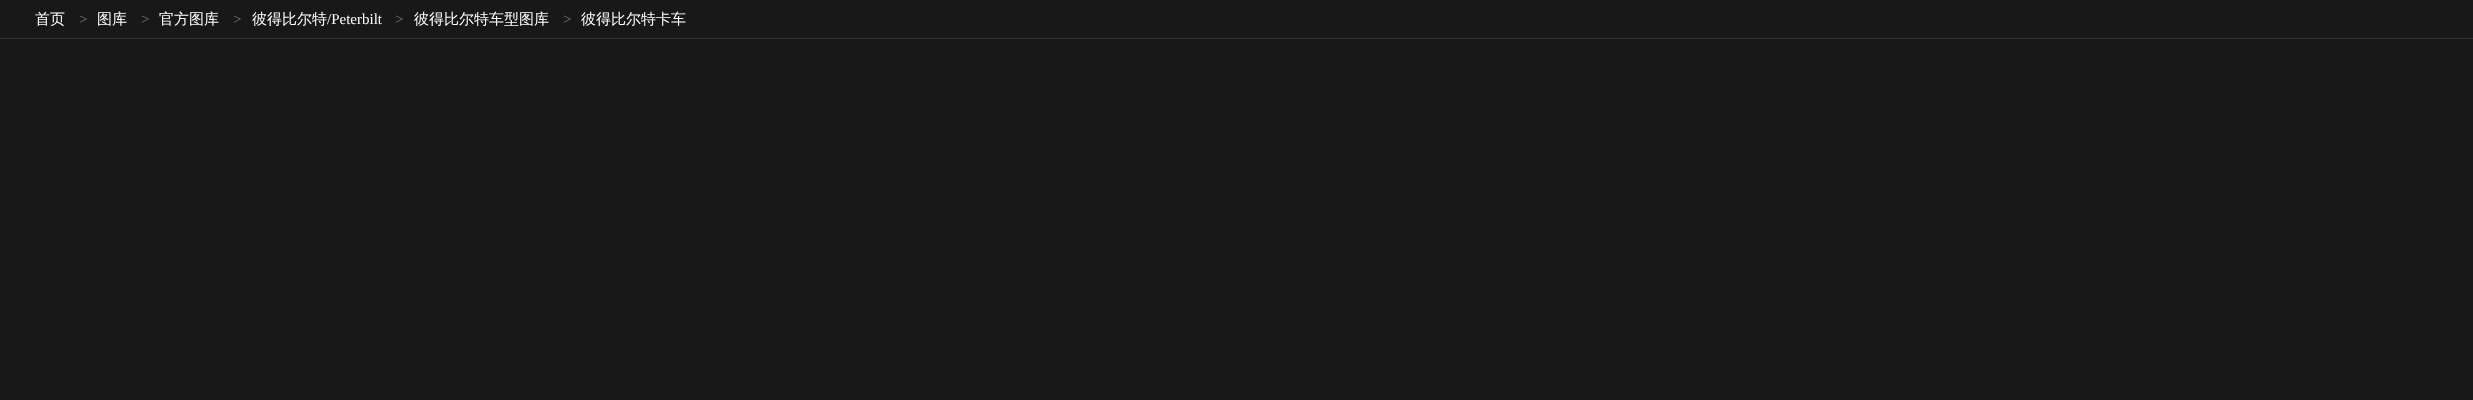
<svg xmlns="http://www.w3.org/2000/svg" width="2473" height="400" viewBox="0 0 2473 400">
  <rect width="100%" height="100%" fill="#181818"/>
  <rect x="0" y="38" width="2473" height="1" fill="#333333"/>
  <text x="35" y="24" font-family="WenQuanYi Zen Hei" font-size="15" font-weight="500" fill="#ffffff">首页</text>
  <text x="79" y="24" font-family="Liberation Serif" font-size="15" fill="#777777">&gt;</text>
  <text x="97" y="24" font-family="WenQuanYi Zen Hei" font-size="15" font-weight="500" fill="#ffffff">图库</text>
  <text x="141" y="24" font-family="Liberation Serif" font-size="15" fill="#777777">&gt;</text>
  <text x="159" y="24" font-family="WenQuanYi Zen Hei" font-size="15" font-weight="500" fill="#ffffff">官方图库</text>
  <text x="233" y="24" font-family="Liberation Serif" font-size="15" fill="#777777">&gt;</text>
  <text x="252" y="24" font-family="WenQuanYi Zen Hei" font-size="15" font-weight="500" fill="#ffffff">彼得比尔特</text>
  <text x="327" y="24" font-family="Liberation Serif" font-size="15" fill="#ffffff">/Peterbilt</text>
  <text x="395" y="24" font-family="Liberation Serif" font-size="15" fill="#777777">&gt;</text>
  <text x="414" y="24" font-family="WenQuanYi Zen Hei" font-size="15" font-weight="500" fill="#ffffff">彼得比尔特车型图库</text>
  <text x="563" y="24" font-family="Liberation Serif" font-size="15" fill="#777777">&gt;</text>
  <text x="581" y="24" font-family="WenQuanYi Zen Hei" font-size="15" font-weight="500" fill="#ffffff">彼得比尔特卡车</text>
</svg>
